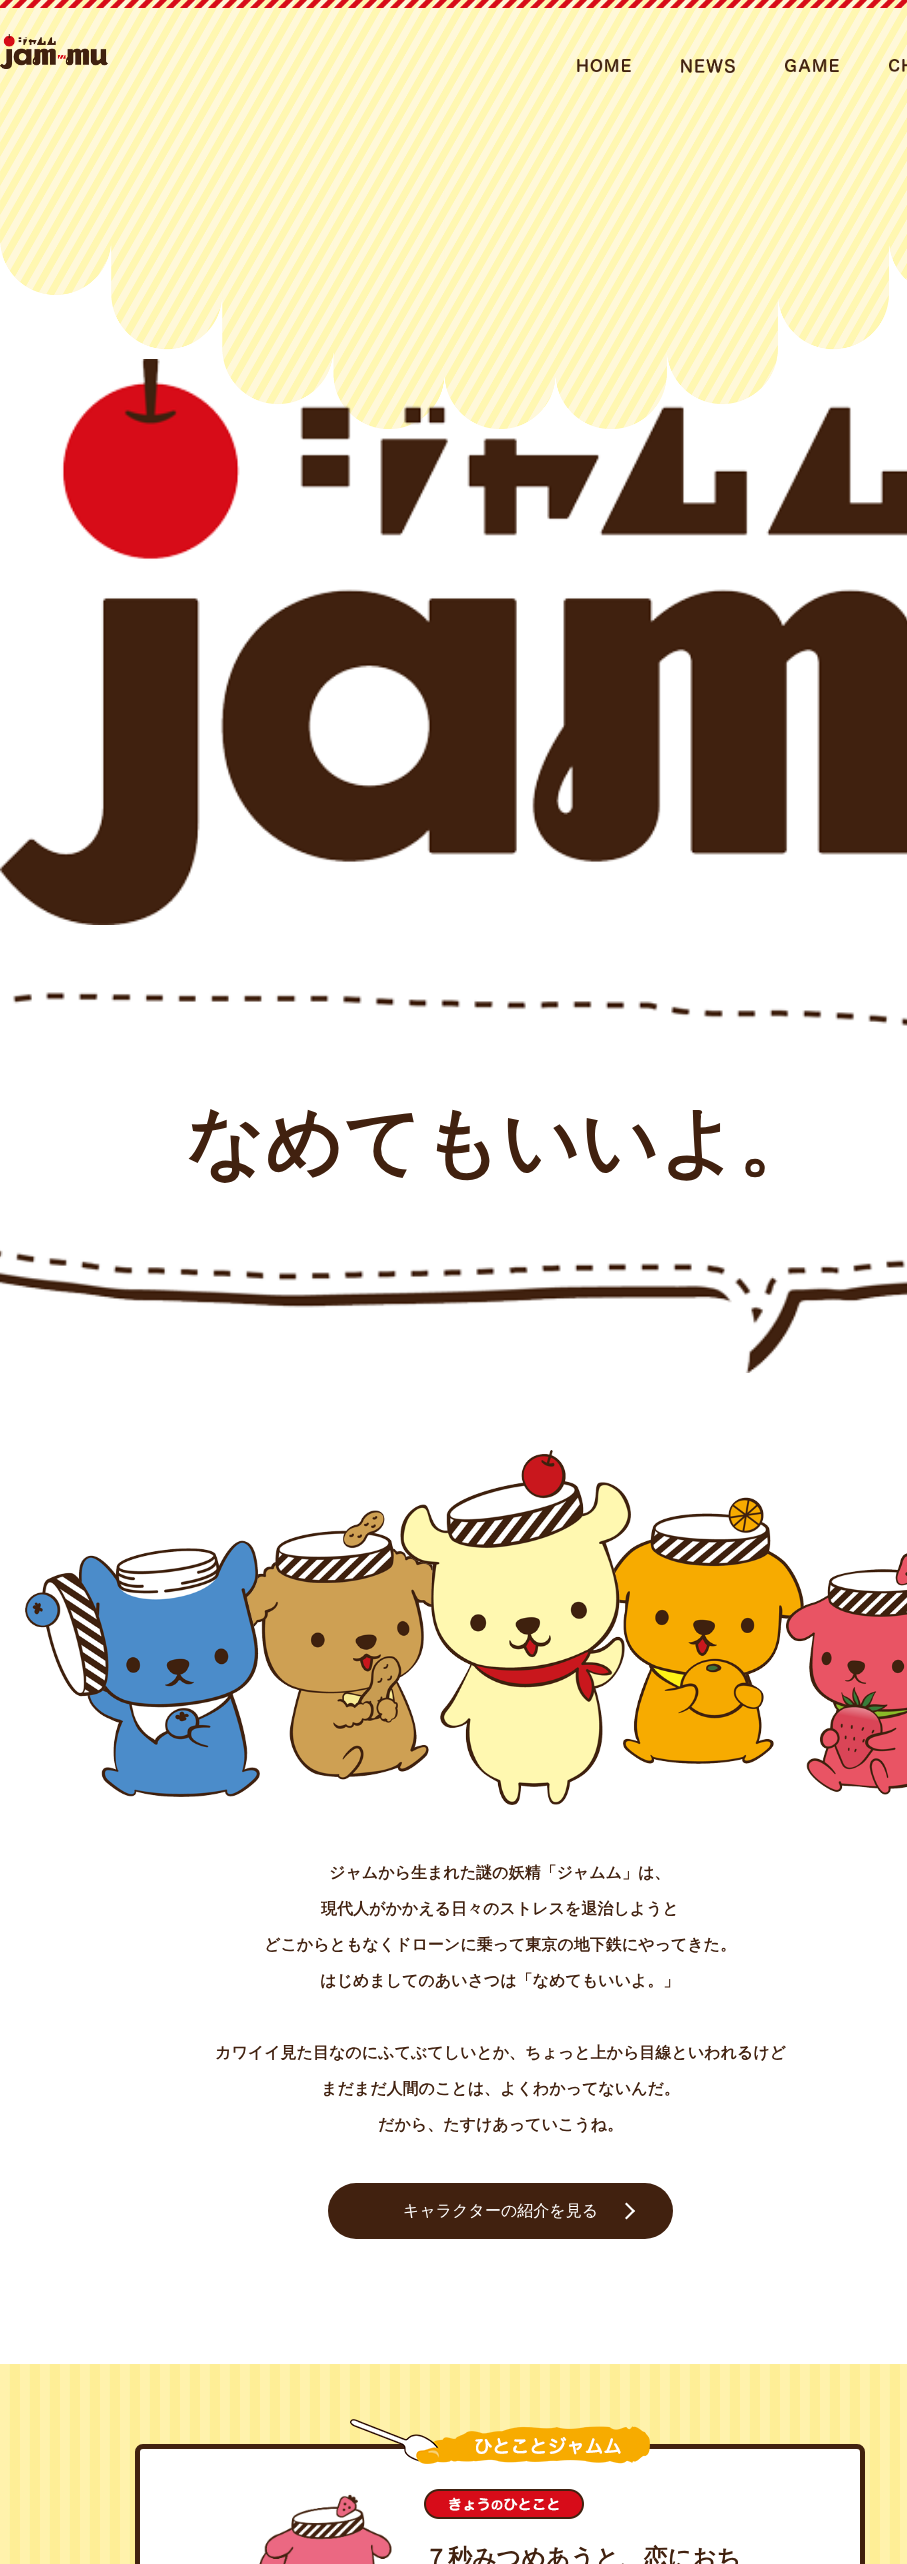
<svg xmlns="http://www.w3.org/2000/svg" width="907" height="2564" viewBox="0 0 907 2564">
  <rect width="100%" height="100%" fill="#ffffff"/>
  <image x="0" y="0" width="907" height="429" href="img7.png"/>
  <image x="0" y="0" width="907" height="8" href="img1.png"/>
  <image x="0" y="34" width="108" height="35" href="img2.png"/>
  <image x="577" y="59" width="54" height="13" href="img3.png"/>
  <image x="681" y="59" width="54" height="14" href="img4.png"/>
  <image x="785" y="59" width="54" height="13" href="img5.png"/>
  <image x="889" y="59" width="18" height="13" href="img6.png"/>
  <image x="0" y="359" width="907" height="566" href="img8.png"/>
  <image x="0" y="992" width="907" height="381" href="img9.png"/>
  <text x="186" y="1169" font-family="WenQuanYi Zen Hei" font-size="77" font-weight="bold" fill="#41210f">なめてもいいよ。</text>
  <image x="246" y="1510" width="187" height="270" href="img11.png"/>
  <image x="25" y="1540" width="235" height="257" href="img10.png"/>
  <image x="613" y="1497" width="191" height="267" href="img13.png"/>
  <image x="400" y="1450" width="231" height="355" href="img12.png"/>
  <image x="786" y="1553" width="121" height="242" href="img14.png"/>
  <text x="329" y="1878" font-family="WenQuanYi Zen Hei" font-size="16" font-weight="bold" fill="#41210f">ジャムから生まれた謎の妖精「ジャムム」は、</text>
  <text x="321" y="1914" font-family="WenQuanYi Zen Hei" font-size="16" font-weight="bold" fill="#41210f">現代人がかかえる日々のストレスを退治しようと</text>
  <text x="264" y="1950" font-family="WenQuanYi Zen Hei" font-size="16" font-weight="bold" fill="#41210f">どこからともなくドローンに乗って東京の地下鉄にやってきた。</text>
  <text x="320" y="1986" font-family="WenQuanYi Zen Hei" font-size="16" font-weight="bold" fill="#41210f">はじめましてのあいさつは「なめてもいいよ。」</text>
  <text x="215" y="2058" font-family="WenQuanYi Zen Hei" font-size="16" font-weight="bold" fill="#41210f">カワイイ見た目なのにふてぶてしいとか、ちょっと上から目線といわれるけど</text>
  <text x="321" y="2094" font-family="WenQuanYi Zen Hei" font-size="16" font-weight="bold" fill="#41210f">まだまだ人間のことは、よくわかってないんだ。</text>
  <text x="378" y="2130" font-family="WenQuanYi Zen Hei" font-size="16" font-weight="bold" fill="#41210f">だから、たすけあっていこうね。</text>
  <rect x="328" y="2183" width="345" height="56" rx="28" fill="#41210f"/>
  <text x="403" y="2216" font-family="WenQuanYi Zen Hei" font-size="16" font-weight="500" fill="#ffffff">キャラクターの紹介を見る</text>
  <path d="M626.5 2202.5L635 2211L633.5 2212.5L625 2204Z" fill="#ffffff"/>
  <path d="M633.5 2209.5L635 2211L626.5 2219.5L625 2218Z" fill="#ffffff"/>
  <image x="0" y="2364" width="907" height="200" href="img15.png"/>
  <rect x="137.5" y="2446.5" width="725" height="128" rx="5.5" fill="#ffffff" stroke="#41210f" stroke-width="5"/>
  <image x="350" y="2419" width="300" height="45" href="img16.png"/>
  <image x="259" y="2493" width="133" height="71" href="img17.png"/>
  <image x="424" y="2489" width="160" height="30" href="img18.png"/>
  <text x="424" y="2566" font-family="WenQuanYi Zen Hei" font-size="24" font-weight="bold" fill="#41210f">７秒みつめあうと、恋におち</text>
</svg>
